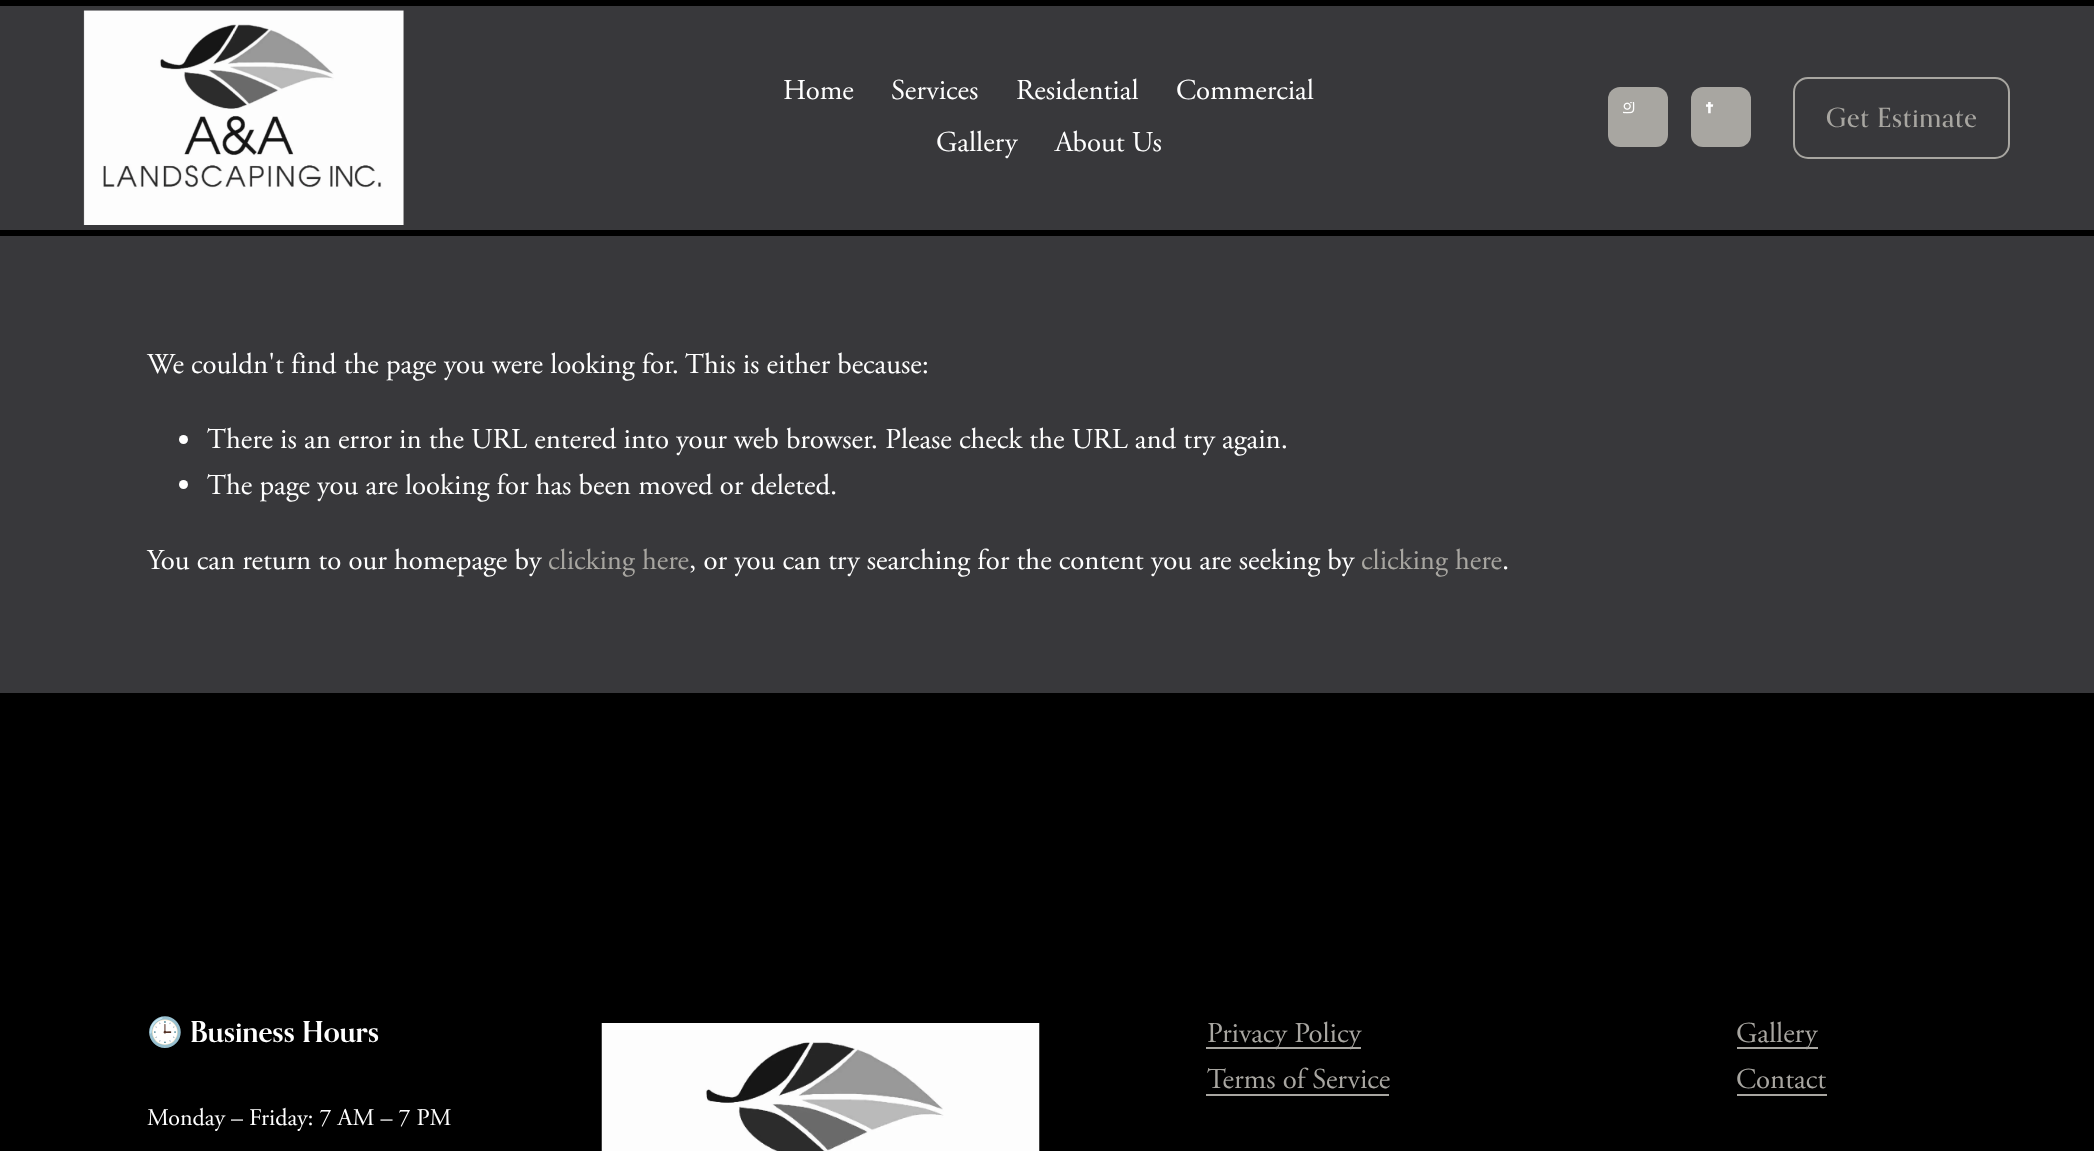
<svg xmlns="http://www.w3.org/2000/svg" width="2094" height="1151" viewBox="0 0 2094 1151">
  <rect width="100%" height="100%" fill="#38383b"/>
  <rect x="0" y="0" width="2094" height="6" fill="#000000"/>
  <rect x="0" y="230" width="2094" height="6" fill="#000000"/>
  <image x="83" y="10" width="321" height="215" href="img1.png"/>
  <text x="783" y="99" font-family="Adobe Garamond" font-size="28.8" fill="#ffffff">Home</text>
  <text x="891" y="99" font-family="Adobe Garamond" font-size="28.8" fill="#ffffff">Services</text>
  <text x="1016" y="99" font-family="Adobe Garamond" font-size="28.8" fill="#ffffff">Residential</text>
  <text x="1176" y="99" font-family="Adobe Garamond" font-size="28.8" fill="#ffffff">Commercial</text>
  <text x="936" y="151" font-family="Adobe Garamond" font-size="28.8" fill="#ffffff">Gallery</text>
  <text x="1055" y="151" font-family="Adobe Garamond" font-size="28.8" fill="#ffffff">About Us</text>
  <rect x="1608" y="87" width="60" height="60" rx="12" fill="#a8a6a1"/>
  <image x="1623" y="102" width="12" height="12" href="img2.png"/>
  <rect x="1691" y="87" width="60" height="60" rx="12" fill="#a8a6a1"/>
  <image x="1706" y="102" width="8" height="12" href="img3.png"/>
  <rect x="1794" y="78" width="215" height="80" rx="14" fill="none" stroke="#a8a6a1" stroke-width="2"/>
  <text x="1826" y="127" font-family="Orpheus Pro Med" font-size="26.5" font-weight="500" letter-spacing="1" fill="#a8a6a1">Get Estimate</text>
  <text x="147" y="373" font-family="Adobe Garamond" font-size="28.8" fill="#ffffff">We couldn't find the page you were looking for. This is either because:</text>
  <circle cx="183.5" cy="439.5" r="4.5" fill="#ffffff"/>
  <text x="207" y="448" font-family="Adobe Garamond" font-size="28.8" fill="#ffffff">There is an error in the URL entered into your web browser. Please check the URL and try again.</text>
  <circle cx="183.5" cy="484.5" r="4.5" fill="#ffffff"/>
  <text x="207" y="494" font-family="Adobe Garamond" font-size="28.8" fill="#ffffff">The page you are looking for has been moved or deleted.</text>
  <text x="147" y="569" font-family="Adobe Garamond" font-size="28.8" fill="#ffffff">You can return to our homepage by</text>
  <text x="548" y="569" font-family="Adobe Garamond" font-size="28.8" fill="#a8a6a1">clicking here</text>
  <text x="689" y="569" font-family="Adobe Garamond" font-size="28.8" fill="#ffffff">, or you can try searching for the content you are seeking by</text>
  <text x="1361" y="569" font-family="Adobe Garamond" font-size="28.8" fill="#a8a6a1">clicking here</text>
  <text x="1502" y="569" font-family="Adobe Garamond" font-size="28.8" fill="#ffffff">.</text>
  <rect x="0" y="693" width="2094" height="458" fill="#000000"/>
  <text x="147" y="1042" font-family="Noto Color Emoji" font-size="28.8" fill="#ffffff">🕒</text>
  <text x="190" y="1042" font-family="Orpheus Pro" font-size="28.8" font-weight="bold" fill="#ffffff">Business Hours</text>
  <text x="147" y="1125" font-family="Adobe Garamond" font-size="24" fill="#ffffff">Monday – Friday: 7 AM – 7 PM</text>
  <image x="601" y="1023" width="439" height="128" href="img4.png"/>
  <rect x="1206" y="1047" width="155" height="2" fill="#a8a6a1"/>
  <text x="1207" y="1042" font-family="Adobe Garamond" font-size="28.8" fill="#a8a6a1">Privacy Policy</text>
  <text x="1207" y="1088" font-family="Adobe Garamond" font-size="28.8" fill="#a8a6a1">Terms of Service</text>
  <rect x="1206" y="1094" width="183" height="2" fill="#a8a6a1"/>
  <rect x="1737" y="1047" width="81" height="2" fill="#a8a6a1"/>
  <text x="1736" y="1042" font-family="Adobe Garamond" font-size="28.8" fill="#a8a6a1">Gallery</text>
  <text x="1736" y="1088" font-family="Adobe Garamond" font-size="28.8" fill="#a8a6a1">Contact</text>
  <rect x="1737" y="1094" width="90" height="2" fill="#a8a6a1"/>
</svg>
